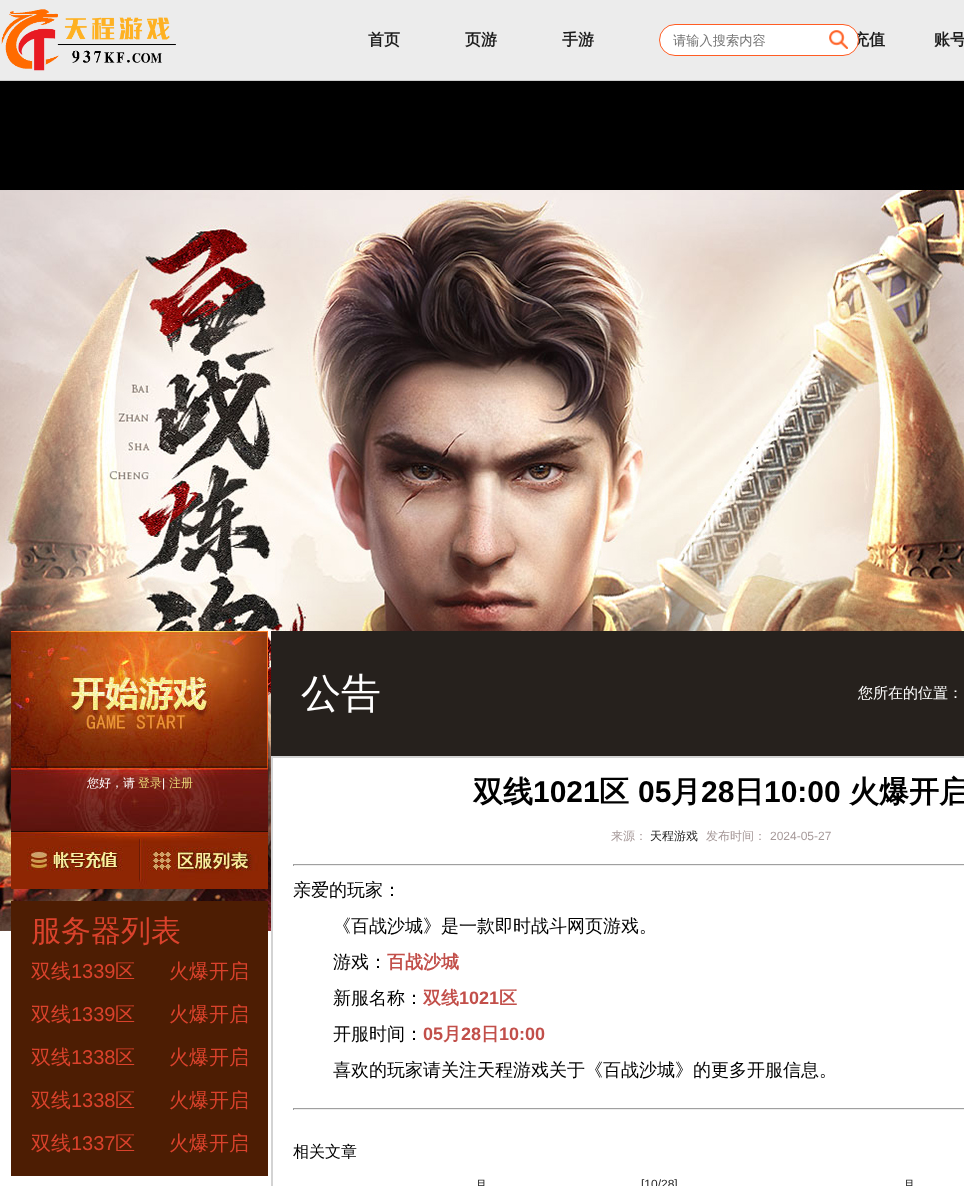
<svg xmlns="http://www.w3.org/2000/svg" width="964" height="1186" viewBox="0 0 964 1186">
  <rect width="100%" height="100%" fill="#ffffff"/>
  <image x="0" y="81" width="964" height="1105" href="img1.png"/>
  <rect x="0" y="0" width="964" height="80" fill="#ececec"/>
  <rect x="0" y="80" width="964" height="1" fill="#cccccc"/>
  <image x="1" y="9" width="175" height="62" href="img2.png"/>
  <text x="368" y="45" font-family="WenQuanYi Zen Hei" font-size="16" font-weight="bold" fill="#1d1d1d">首页</text>
  <text x="465" y="45" font-family="WenQuanYi Zen Hei" font-size="16" font-weight="bold" fill="#1d1d1d">页游</text>
  <text x="562" y="45" font-family="WenQuanYi Zen Hei" font-size="16" font-weight="bold" fill="#1d1d1d">手游</text>
  <text x="853" y="45" font-family="WenQuanYi Zen Hei" font-size="16" font-weight="bold" fill="#1d1d1d">充值</text>
  <text x="934" y="45" font-family="WenQuanYi Zen Hei" font-size="16" font-weight="bold" fill="#1d1d1d">账号</text>
  <rect x="659.5" y="24.5" width="199" height="31" rx="15.5" fill="#ffffff" stroke="#ff5c23"/>
  <text x="673" y="45" font-family="WenQuanYi Zen Hei" font-size="13.25" font-weight="500" fill="#757575">请输入搜索内容</text>
  <image x="829" y="30" width="19" height="19" href="img3.png"/>
  <image x="11" y="631" width="257" height="258" href="img4.png"/>
  <text x="87" y="787" font-family="WenQuanYi Zen Hei" font-size="12" font-weight="500" fill="#ffffff">您好，请</text>
  <text x="138" y="787" font-family="WenQuanYi Zen Hei" font-size="12" font-weight="500" fill="#e6d074">登录</text>
  <text x="162" y="787" font-family="Liberation Sans" font-size="12" fill="#ffffff">|</text>
  <text x="169" y="787" font-family="WenQuanYi Zen Hei" font-size="12" font-weight="500" fill="#e6d074">注册</text>
  <rect x="11" y="901" width="257" height="275" fill="#4d1d03"/>
  <text x="31" y="941" font-family="WenQuanYi Zen Hei" font-size="30" font-weight="500" fill="#da422c">服务器列表</text>
  <text x="31" y="978" font-family="WenQuanYi Zen Hei" font-size="20" font-weight="500" fill="#da422c">双线</text>
  <text x="71" y="978" font-family="Liberation Sans" font-size="20" fill="#da422c">1339</text>
  <text x="115" y="978" font-family="WenQuanYi Zen Hei" font-size="20" font-weight="500" fill="#da422c">区</text>
  <text x="169" y="978" font-family="WenQuanYi Zen Hei" font-size="20" font-weight="500" fill="#da422c">火爆开启</text>
  <text x="31" y="1021" font-family="WenQuanYi Zen Hei" font-size="20" font-weight="500" fill="#da422c">双线</text>
  <text x="71" y="1021" font-family="Liberation Sans" font-size="20" fill="#da422c">1339</text>
  <text x="115" y="1021" font-family="WenQuanYi Zen Hei" font-size="20" font-weight="500" fill="#da422c">区</text>
  <text x="169" y="1021" font-family="WenQuanYi Zen Hei" font-size="20" font-weight="500" fill="#da422c">火爆开启</text>
  <text x="31" y="1064" font-family="WenQuanYi Zen Hei" font-size="20" font-weight="500" fill="#da422c">双线</text>
  <text x="71" y="1064" font-family="Liberation Sans" font-size="20" fill="#da422c">1338</text>
  <text x="115" y="1064" font-family="WenQuanYi Zen Hei" font-size="20" font-weight="500" fill="#da422c">区</text>
  <text x="169" y="1064" font-family="WenQuanYi Zen Hei" font-size="20" font-weight="500" fill="#da422c">火爆开启</text>
  <text x="31" y="1107" font-family="WenQuanYi Zen Hei" font-size="20" font-weight="500" fill="#da422c">双线</text>
  <text x="71" y="1107" font-family="Liberation Sans" font-size="20" fill="#da422c">1338</text>
  <text x="115" y="1107" font-family="WenQuanYi Zen Hei" font-size="20" font-weight="500" fill="#da422c">区</text>
  <text x="169" y="1107" font-family="WenQuanYi Zen Hei" font-size="20" font-weight="500" fill="#da422c">火爆开启</text>
  <text x="31" y="1150" font-family="WenQuanYi Zen Hei" font-size="20" font-weight="500" fill="#da422c">双线</text>
  <text x="71" y="1150" font-family="Liberation Sans" font-size="20" fill="#da422c">1337</text>
  <text x="115" y="1150" font-family="WenQuanYi Zen Hei" font-size="20" font-weight="500" fill="#da422c">区</text>
  <text x="169" y="1150" font-family="WenQuanYi Zen Hei" font-size="20" font-weight="500" fill="#da422c">火爆开启</text>
  <rect x="271" y="631" width="693" height="125" fill="#26211d"/>
  <text x="301" y="707" font-family="WenQuanYi Zen Hei" font-size="40" font-weight="500" fill="#ffffff">公告</text>
  <text x="858" y="698" font-family="WenQuanYi Zen Hei" font-size="15" font-weight="500" fill="#ffffff">您所在的位置：</text>
  <rect x="273" y="758" width="691" height="178" fill="#ffffff"/>
  <rect x="272" y="757" width="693" height="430" fill="none" stroke="#d3d3d3" stroke-width="2"/>
  <text x="473" y="802" font-family="WenQuanYi Zen Hei" font-size="30" font-weight="bold" fill="#000000">双线</text>
  <text x="533" y="802" font-family="Liberation Sans" font-size="30" font-weight="bold" fill="#000000">1021</text>
  <text x="599" y="802" font-family="WenQuanYi Zen Hei" font-size="30" font-weight="bold" fill="#000000">区</text>
  <text x="638" y="802" font-family="Liberation Sans" font-size="30" font-weight="bold" fill="#000000">05</text>
  <text x="671" y="802" font-family="WenQuanYi Zen Hei" font-size="30" font-weight="bold" fill="#000000">月</text>
  <text x="701" y="802" font-family="Liberation Sans" font-size="30" font-weight="bold" fill="#000000">28</text>
  <text x="734" y="802" font-family="WenQuanYi Zen Hei" font-size="30" font-weight="bold" fill="#000000">日</text>
  <text x="764" y="802" font-family="Liberation Sans" font-size="30" font-weight="bold" fill="#000000">10:00</text>
  <text x="849" y="802" font-family="WenQuanYi Zen Hei" font-size="30" font-weight="bold" fill="#000000">火爆开启</text>
  <text x="611" y="840" font-family="WenQuanYi Zen Hei" font-size="12" font-weight="500" fill="#a69999">来源：</text>
  <text x="650" y="840" font-family="WenQuanYi Zen Hei" font-size="12" font-weight="500" fill="#252525">天程游戏</text>
  <text x="706" y="840" font-family="WenQuanYi Zen Hei" font-size="12" font-weight="500" fill="#a69999">发布时间：</text>
  <text x="770" y="840" font-family="Liberation Sans" font-size="12" fill="#a69999">2024-05-27</text>
  <rect x="293" y="864" width="671" height="1" fill="#9f9f9f"/>
  <rect x="293" y="865" width="671" height="1" fill="#eeeeee"/>
  <rect x="293" y="864" width="1" height="2" fill="#9f9f9f"/>
  <text x="293" y="896" font-family="WenQuanYi Zen Hei" font-size="18" font-weight="500" fill="#000000">亲爱的玩家：</text>
  <text x="333" y="932" font-family="WenQuanYi Zen Hei" font-size="18" font-weight="500" fill="#000000">《百战沙城》是一款即时战斗网页游戏。</text>
  <text x="333" y="968" font-family="WenQuanYi Zen Hei" font-size="18" font-weight="500" fill="#000000">游戏：</text>
  <text x="387" y="968" font-family="WenQuanYi Zen Hei" font-size="18" font-weight="bold" fill="#c24f4a">百战沙城</text>
  <text x="333" y="1004" font-family="WenQuanYi Zen Hei" font-size="18" font-weight="500" fill="#000000">新服名称：</text>
  <text x="423" y="1004" font-family="WenQuanYi Zen Hei" font-size="18" font-weight="bold" fill="#c24f4a">双线</text>
  <text x="459" y="1004" font-family="Liberation Sans" font-size="18" font-weight="bold" fill="#c24f4a">1021</text>
  <text x="499" y="1004" font-family="WenQuanYi Zen Hei" font-size="18" font-weight="bold" fill="#c24f4a">区</text>
  <text x="333" y="1040" font-family="WenQuanYi Zen Hei" font-size="18" font-weight="500" fill="#000000">开服时间：</text>
  <text x="423" y="1040" font-family="Liberation Sans" font-size="18" font-weight="bold" fill="#c24f4a">05</text>
  <text x="443" y="1040" font-family="WenQuanYi Zen Hei" font-size="18" font-weight="bold" fill="#c24f4a">月</text>
  <text x="461" y="1040" font-family="Liberation Sans" font-size="18" font-weight="bold" fill="#c24f4a">28</text>
  <text x="481" y="1040" font-family="WenQuanYi Zen Hei" font-size="18" font-weight="bold" fill="#c24f4a">日</text>
  <text x="499" y="1040" font-family="Liberation Sans" font-size="18" font-weight="bold" fill="#c24f4a">10:00</text>
  <text x="333" y="1076" font-family="WenQuanYi Zen Hei" font-size="18" font-weight="500" fill="#000000">喜欢的玩家请关注天程游戏关于《百战沙城》的更多开服信息。</text>
  <rect x="293" y="1108" width="671" height="1" fill="#9f9f9f"/>
  <rect x="293" y="1109" width="671" height="1" fill="#eeeeee"/>
  <rect x="293" y="1108" width="1" height="2" fill="#9f9f9f"/>
  <text x="293" y="1157" font-family="WenQuanYi Zen Hei" font-size="16" font-weight="500" fill="#000000">相关文章</text>
  <text x="475" y="1189" font-family="WenQuanYi Zen Hei" font-size="12" font-weight="500" fill="#252525">月</text>
  <text x="641" y="1188" font-family="Liberation Sans" font-size="12" fill="#252525">[10/28]</text>
  <text x="903" y="1189" font-family="WenQuanYi Zen Hei" font-size="12" font-weight="500" fill="#252525">月</text>
</svg>
